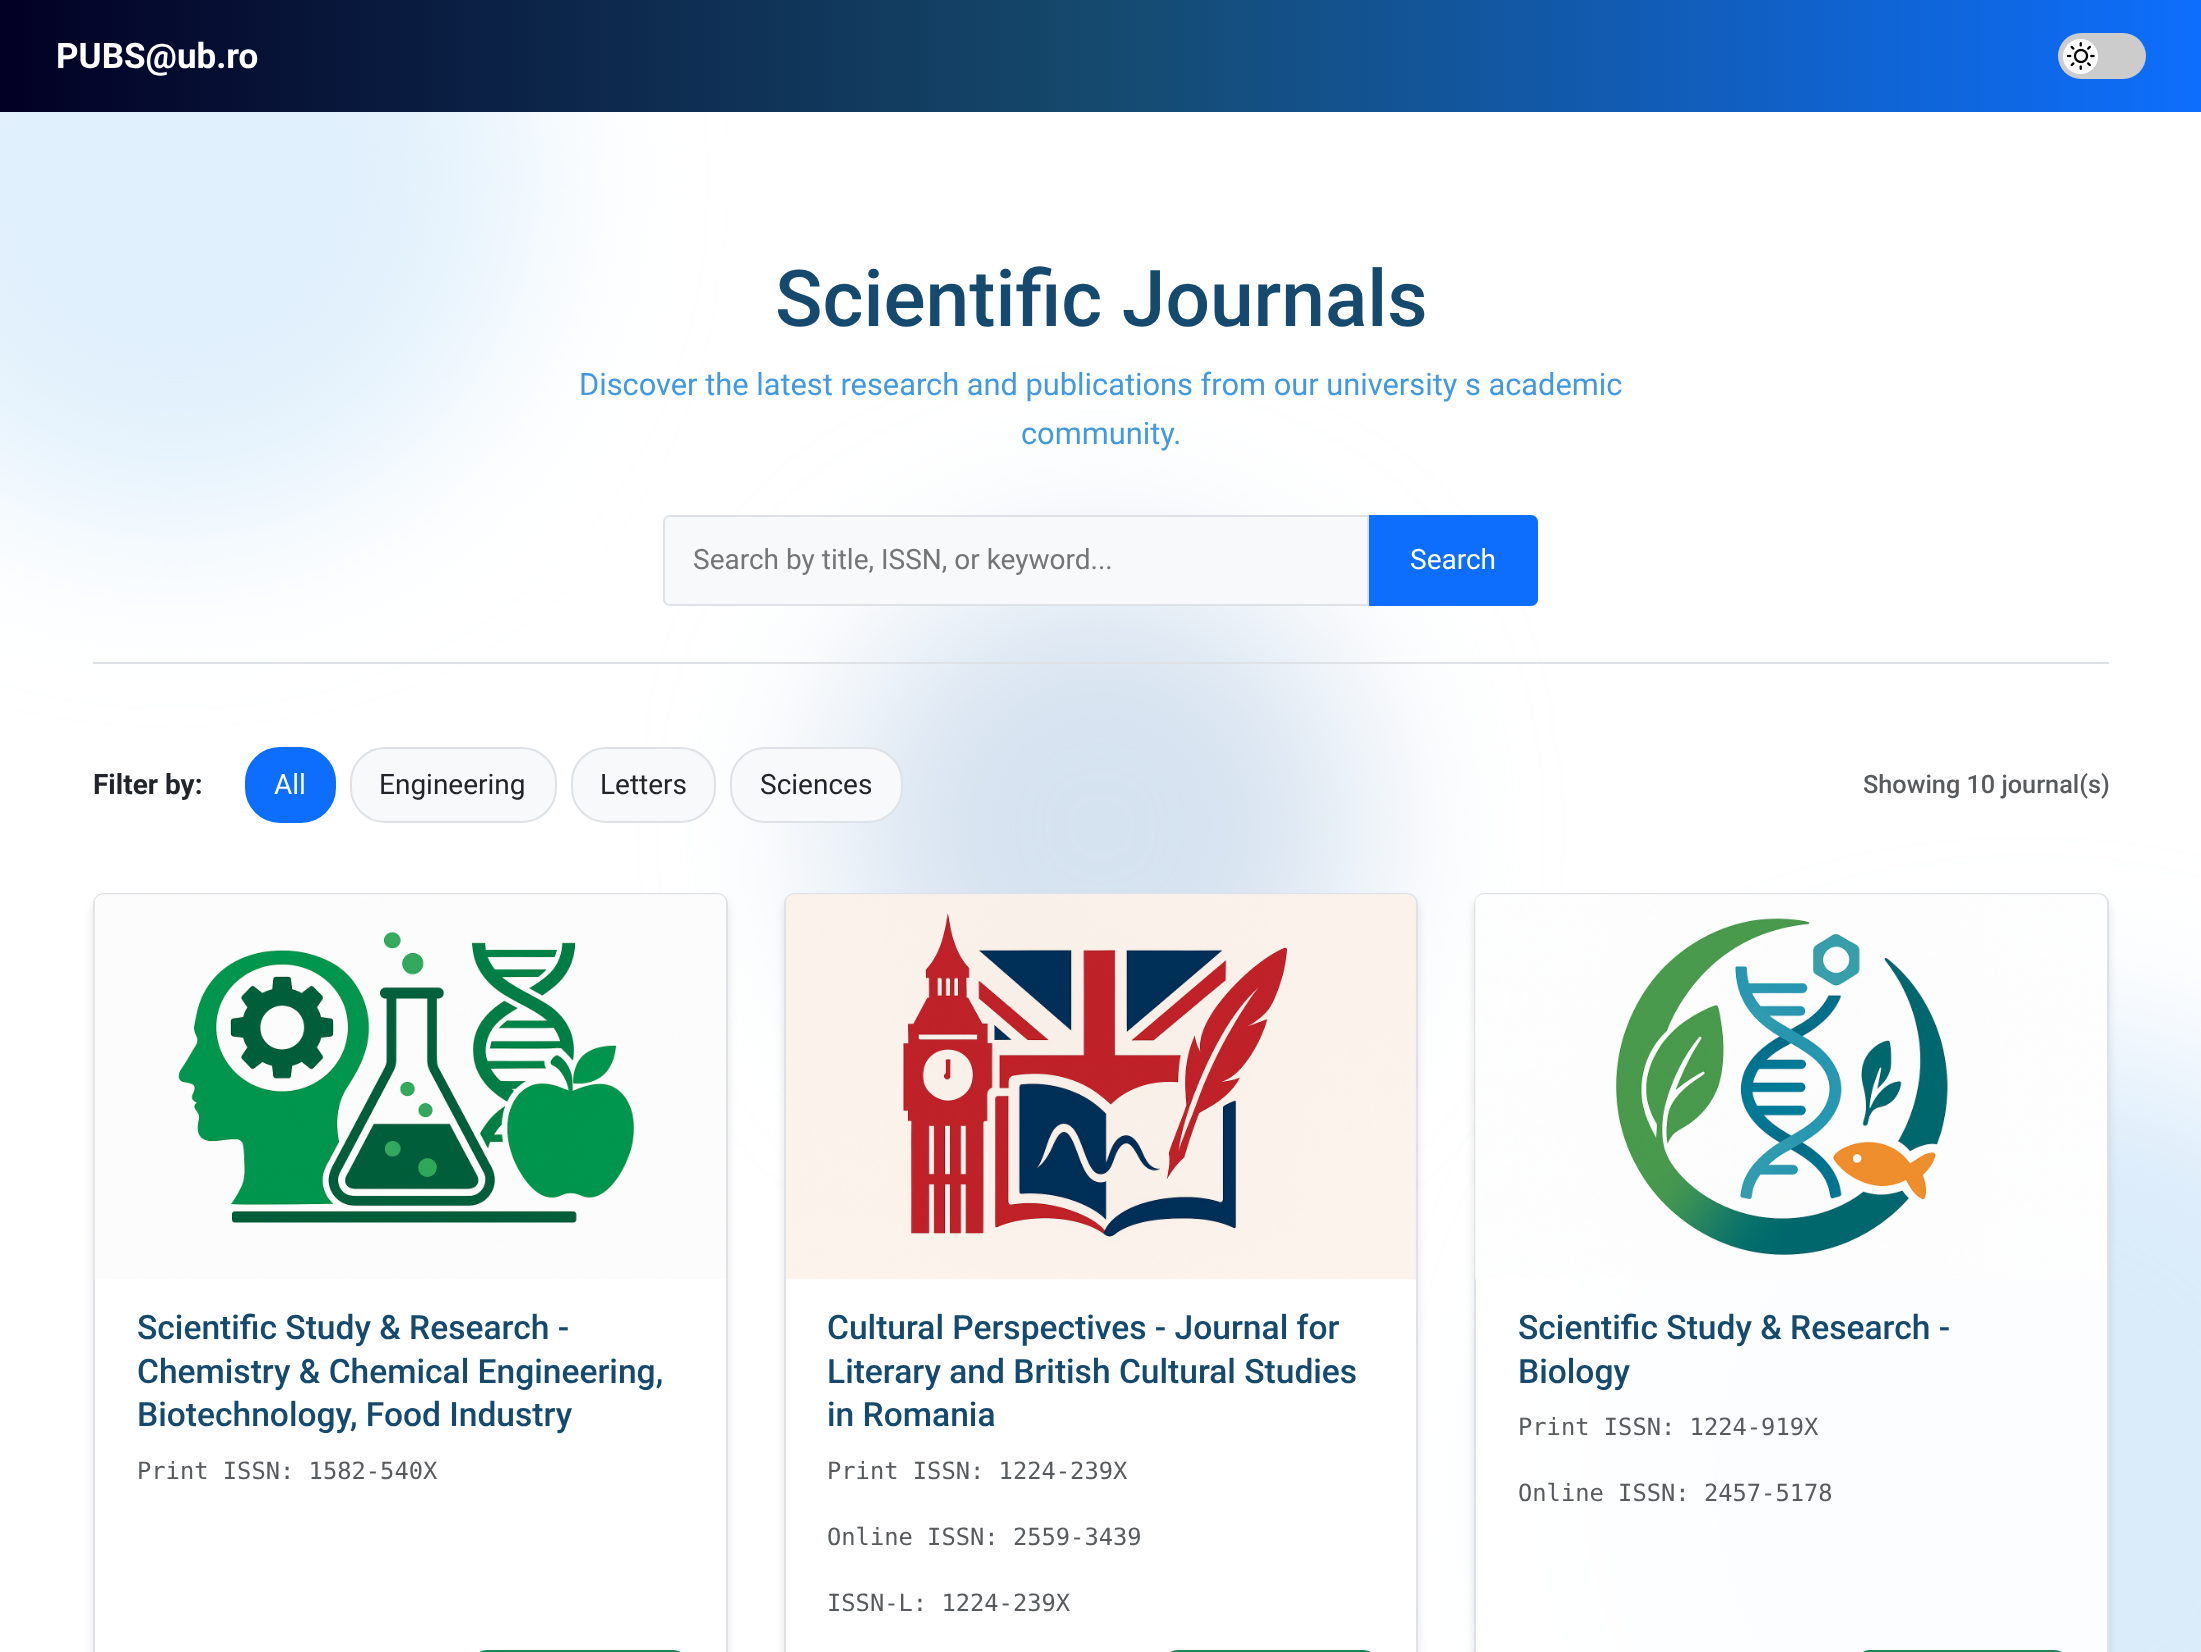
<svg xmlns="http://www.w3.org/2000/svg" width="2201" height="1652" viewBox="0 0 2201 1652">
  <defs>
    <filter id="blur1" x="-50%" y="-200%" width="200%" height="500%"><feGaussianBlur stdDeviation="87.5"/></filter>
    <linearGradient id="g1" gradientUnits="userSpaceOnUse" x1="0" y1="56" x2="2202" y2="56"><stop offset="0" stop-color="#020024"/><stop offset="0.5" stop-color="#154a6e"/><stop offset="1" stop-color="#0d6efd"/></linearGradient>
    <clipPath id="clip1"><path d="M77 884H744V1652H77ZM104 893H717C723 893 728 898 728 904V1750C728 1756 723 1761 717 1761H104C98 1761 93 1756 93 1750V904C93 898 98 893 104 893Z" clip-rule="evenodd"/></clipPath>
    <filter id="blur2" x="-50%" y="-200%" width="200%" height="500%"><feGaussianBlur stdDeviation="5"/></filter>
    <clipPath id="clip2"><path d="M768 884H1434V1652H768ZM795 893H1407C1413 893 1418 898 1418 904V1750C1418 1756 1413 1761 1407 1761H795C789 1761 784 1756 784 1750V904C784 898 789 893 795 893Z" clip-rule="evenodd"/></clipPath>
    <clipPath id="clip3"><path d="M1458 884H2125V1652H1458ZM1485 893H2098C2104 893 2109 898 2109 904V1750C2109 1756 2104 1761 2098 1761H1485C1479 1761 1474 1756 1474 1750V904C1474 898 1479 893 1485 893Z" clip-rule="evenodd"/></clipPath>
  </defs>
  <rect width="100%" height="100%" fill="#ffffff"/>
  <rect x="-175" y="-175" width="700" height="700" rx="350" fill="#e0f0fc" filter="url(#blur1)"/>
  <rect x="0" y="0" width="2201" height="112" fill="url(#g1)"/>
  <text x="56" y="68" font-family="Roboto" font-size="35" font-weight="bold" fill="#ffffff">PUBS@ub.ro</text>
  <rect x="2058" y="33" width="88" height="46" rx="23" fill="#cccccc"/>
  <circle cx="2080.5" cy="56.5" r="17.5" fill="#ffffff"/>
  <image x="2067" y="42" width="28" height="28" href="img1.png"/>
  <rect x="838" y="564" width="525" height="525" rx="262.5" fill="#d5e2f0" filter="url(#blur1)"/>
  <rect x="1589" y="1040" width="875" height="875" rx="437.5" fill="#daebfa" filter="url(#blur1)"/>
  <rect x="93" y="662" width="2016" height="2" fill="#dee2e6"/>
  <text x="775" y="326" font-family="Roboto" font-size="78.5" font-weight="500" fill="#154a6e">Scientific Journals</text>
  <text x="579" y="395" font-family="Roboto" font-size="30.8" fill="#4299e1">Discover the latest research and publications from our university s academic</text>
  <text x="1021" y="444" font-family="Roboto" font-size="30.8" fill="#4299e1">community.</text>
  <path d="M670 516H1368V605H670C666.5 605 664 602.5 664 599V522C664 518.5 666.5 516 670 516Z" fill="#f8f9fa" stroke="#dee2e6" stroke-width="2"/>
  <text x="693" y="569" font-family="Roboto" font-size="28" fill="#757575">Search by title, ISSN, or keyword...</text>
  <path d="M1369 515H1531C1535 515 1538 518 1538 522V599C1538 603 1535 606 1531 606H1369Z" fill="#0d6efd"/>
  <text x="1410" y="569" font-family="Roboto" font-size="28" fill="#ffffff">Search</text>
  <text x="93" y="794" font-family="Roboto" font-size="28" font-weight="bold" fill="#212529">Filter by:</text>
  <rect x="246" y="748" width="89" height="74" rx="34" fill="#0d6efd" stroke="#0d6efd" stroke-width="2"/>
  <text x="274" y="794" font-family="Roboto" font-size="28" fill="#ffffff">All</text>
  <rect x="351" y="748" width="205" height="74" rx="34" fill="#f8f9fa" stroke="#dee2e6" stroke-width="2"/>
  <text x="379" y="794" font-family="Roboto" font-size="28" fill="#212529">Engineering</text>
  <rect x="572" y="748" width="143" height="74" rx="34" fill="#f8f9fa" stroke="#dee2e6" stroke-width="2"/>
  <text x="600" y="794" font-family="Roboto" font-size="28" fill="#212529">Letters</text>
  <rect x="731" y="748" width="171" height="74" rx="34" fill="#f8f9fa" stroke="#dee2e6" stroke-width="2"/>
  <text x="760" y="794" font-family="Roboto" font-size="28" fill="#212529">Sciences</text>
  <text x="1863" y="793" font-family="Roboto" font-size="25.25" font-weight="500" fill="#585b5e">Showing 10 journal(s)</text>
  <g clip-path="url(#clip1)">
    <rect x="93" y="900" width="635" height="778" rx="11" fill="#000000" fill-opacity="0.1" filter="url(#blur2)"/>
  </g>
  <rect x="94" y="894" width="633" height="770" rx="10" fill="none" stroke="#dee2e6" stroke-width="2"/>
  <path d="M104 894H717C722 894 726 898 726 903V1279H95V903C95 898 99 894 104 894Z" fill="#eeeeee"/>
  <image x="94" y="894" width="632" height="385" href="img2.png"/>
  <text x="137" y="1339" font-family="Roboto" font-size="33.6" font-weight="500" fill="#154a6e">Scientific Study &amp; Research -</text>
  <text x="137" y="1383" font-family="Roboto" font-size="33.6" font-weight="500" fill="#154a6e">Chemistry &amp; Chemical Engineering,</text>
  <text x="137" y="1426" font-family="Roboto" font-size="33.6" font-weight="500" fill="#154a6e">Biotechnology, Food Industry</text>
  <text x="137" y="1479" font-family="DejaVu Sans Mono" font-size="23.75" fill="#585b5e">Print ISSN: 1582-540X</text>
  <rect x="477" y="1651" width="206" height="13" rx="10" fill="none" stroke="#198754" stroke-width="2"/>
  <g clip-path="url(#clip2)">
    <rect x="784" y="900" width="634" height="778" rx="11" fill="#000000" fill-opacity="0.1" filter="url(#blur2)"/>
  </g>
  <rect x="785" y="894" width="632" height="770" rx="10" fill="#ffffff" fill-opacity="0.9" stroke="#dee2e6" stroke-width="2"/>
  <path d="M795 894H1407C1412 894 1416 898 1416 903V1279H786V903C786 898 790 894 795 894Z" fill="#eeeeee"/>
  <image x="786" y="894" width="630" height="386" href="img3.png"/>
  <text x="827" y="1339" font-family="Roboto" font-size="33.6" font-weight="500" fill="#154a6e">Cultural Perspectives - Journal for</text>
  <text x="827" y="1383" font-family="Roboto" font-size="33.6" font-weight="500" fill="#154a6e">Literary and British Cultural Studies</text>
  <text x="827" y="1426" font-family="Roboto" font-size="33.6" font-weight="500" fill="#154a6e">in Romania</text>
  <text x="827" y="1479" font-family="DejaVu Sans Mono" font-size="23.75" fill="#585b5e">Print ISSN: 1224-239X</text>
  <text x="827" y="1545" font-family="DejaVu Sans Mono" font-size="23.75" fill="#585b5e">Online ISSN: 2559-3439</text>
  <text x="827" y="1611" font-family="DejaVu Sans Mono" font-size="23.75" fill="#585b5e">ISSN-L: 1224-239X</text>
  <rect x="1168" y="1651" width="205" height="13" rx="10" fill="none" stroke="#198754" stroke-width="2"/>
  <g clip-path="url(#clip3)">
    <rect x="1474" y="900" width="635" height="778" rx="11" fill="#000000" fill-opacity="0.1" filter="url(#blur2)"/>
  </g>
  <rect x="1475" y="894" width="633" height="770" rx="10" fill="#ffffff" fill-opacity="0.9" stroke="#dee2e6" stroke-width="2"/>
  <path d="M1484 894H2098C2103 894 2107 898 2107 903V1279H1475V903C1475 898 1479 894 1484 894Z" fill="#eeeeee"/>
  <image x="1475" y="894" width="632" height="386" href="img4.png"/>
  <text x="1518" y="1339" font-family="Roboto" font-size="33.6" font-weight="500" fill="#154a6e">Scientific Study &amp; Research -</text>
  <text x="1518" y="1383" font-family="Roboto" font-size="33.6" font-weight="500" fill="#154a6e">Biology</text>
  <text x="1518" y="1435" font-family="DejaVu Sans Mono" font-size="23.75" fill="#585b5e">Print ISSN: 1224-919X</text>
  <text x="1518" y="1501" font-family="DejaVu Sans Mono" font-size="23.75" fill="#585b5e">Online ISSN: 2457-5178</text>
  <rect x="1860" y="1651" width="204" height="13" rx="10" fill="none" stroke="#198754" stroke-width="2"/>
</svg>
